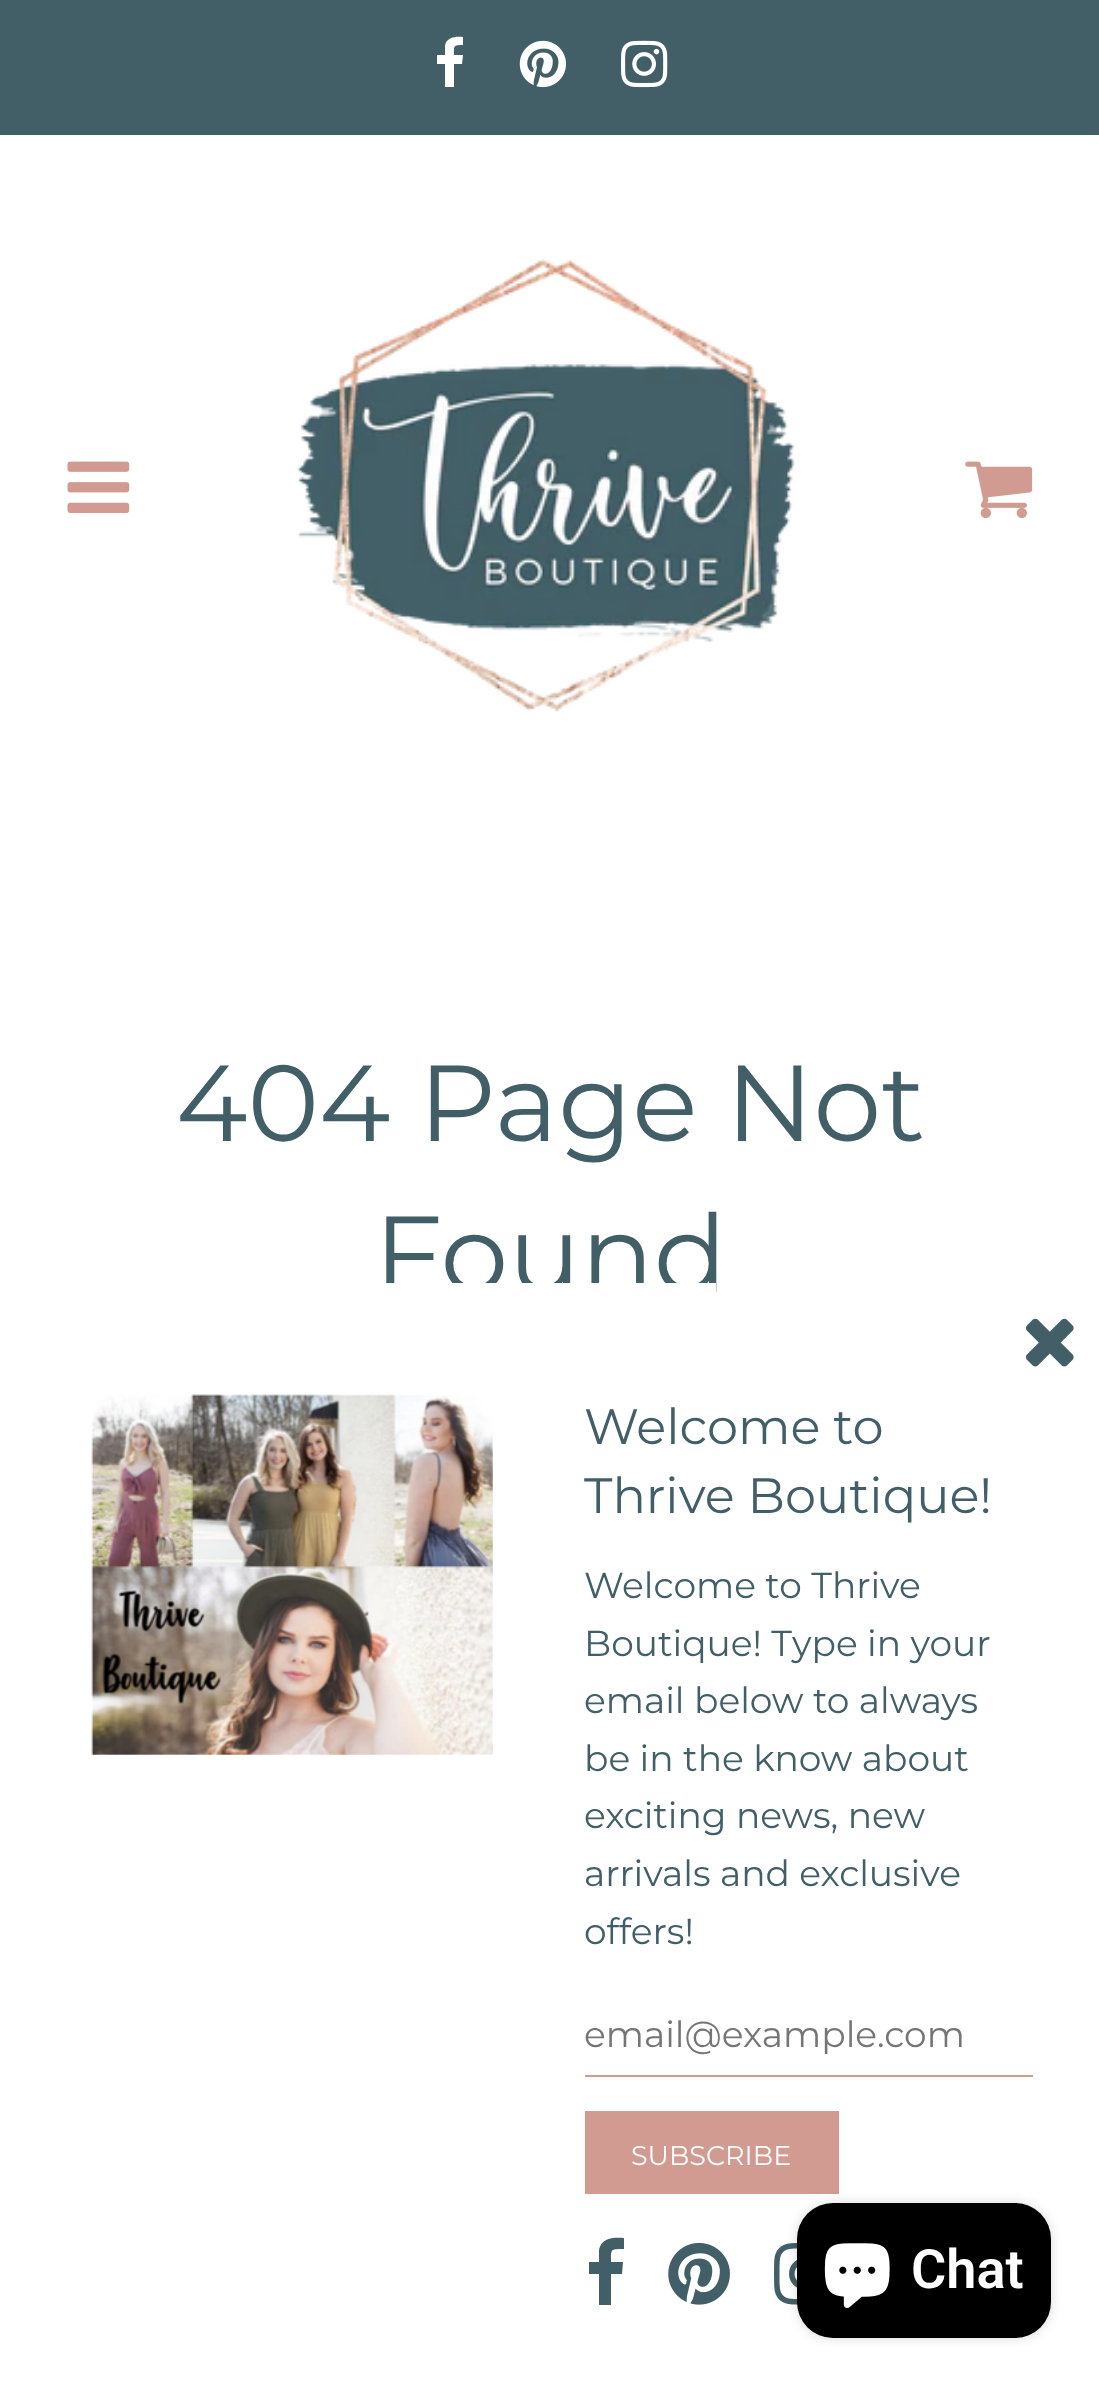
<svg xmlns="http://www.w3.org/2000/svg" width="1099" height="2385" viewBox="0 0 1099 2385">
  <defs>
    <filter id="blur1" x="-50%" y="-200%" width="200%" height="500%"><feGaussianBlur stdDeviation="5.5"/></filter>
  </defs>
  <rect width="100%" height="100%" fill="#ffffff"/>
  <rect x="0" y="0" width="1099" height="135" fill="#425f67"/>
  <path d="M463 37V45C453 45 454 46 454 55H463L462 64H454V87H445V64H437V55H445V46C446 37 456 36 463 37Z" fill="#ffffff"/>
  <image x="519" y="40" width="47" height="48" href="img1.png"/>
  <image x="621" y="40" width="47" height="48" href="img2.png"/>
  <image x="67" y="461" width="63" height="52" href="img3.png"/>
  <image x="297" y="258" width="498" height="454" href="img4.png"/>
  <image x="965" y="461" width="68" height="58" href="img5.png"/>
  <text x="176" y="1141" font-family="Montserrat" font-size="108" fill="#425f67">404 Page Not</text>
  <text x="374" y="1292" font-family="Montserrat" font-size="108" fill="#425f67">Found</text>
  <rect x="385" y="1283" width="331" height="10" fill="#ffffff"/>
  <image x="1025" y="1318" width="49" height="49" href="img6.png"/>
  <image x="91" y="1394" width="402" height="361" href="img7.png"/>
  <text x="584" y="1444" font-family="Montserrat" font-size="49.5" fill="#425f67">Welcome to</text>
  <text x="584" y="1513" font-family="Montserrat" font-size="49.5" fill="#425f67">Thrive Boutique!</text>
  <text x="584" y="1598" font-family="Montserrat" font-size="36" fill="#425f67">Welcome to Thrive</text>
  <text x="584" y="1656" font-family="Montserrat" font-size="36" fill="#425f67">Boutique! Type in your</text>
  <text x="584" y="1713" font-family="Montserrat" font-size="36" fill="#425f67">email below to always</text>
  <text x="584" y="1771" font-family="Montserrat" font-size="36" fill="#425f67">be in the know about</text>
  <text x="584" y="1828" font-family="Montserrat" font-size="36" fill="#425f67">exciting news, new</text>
  <text x="584" y="1886" font-family="Montserrat" font-size="36" fill="#425f67">arrivals and exclusive</text>
  <text x="584" y="1944" font-family="Montserrat" font-size="36" fill="#425f67">offers!</text>
  <rect x="585" y="2075" width="448" height="2" fill="#d19b91"/>
  <text x="584" y="2047" font-family="Montserrat" font-size="36" fill="#757575">email@example.com</text>
  <rect x="585" y="2111" width="254" height="83" fill="#d19b91"/>
  <text x="631" y="2165" font-family="Montserrat" font-size="27" fill="#ffffff">SUBSCRIBE</text>
  <path d="M624 2238V2249C610 2249 611 2249 611 2262H623L622 2274H611V2305H599V2274H589V2262H599V2250C601 2238 613 2237 624 2238Z" fill="#425f67"/>
  <image x="668" y="2242" width="62" height="63" href="img8.png"/>
  <image x="774" y="2243" width="24" height="62" href="img9.png"/>
  <rect x="797" y="2203" width="254" height="135" rx="36" fill="#000000" fill-opacity="0.15" filter="url(#blur1)"/>
  <rect x="797" y="2203" width="254" height="135" rx="36" fill="#000000"/>
  <image x="824" y="2243" width="66" height="65" href="img10.png"/>
  <text x="911" y="2288" font-family="Roboto" font-size="54" font-weight="600" fill="#ffffff">Chat</text>
</svg>
